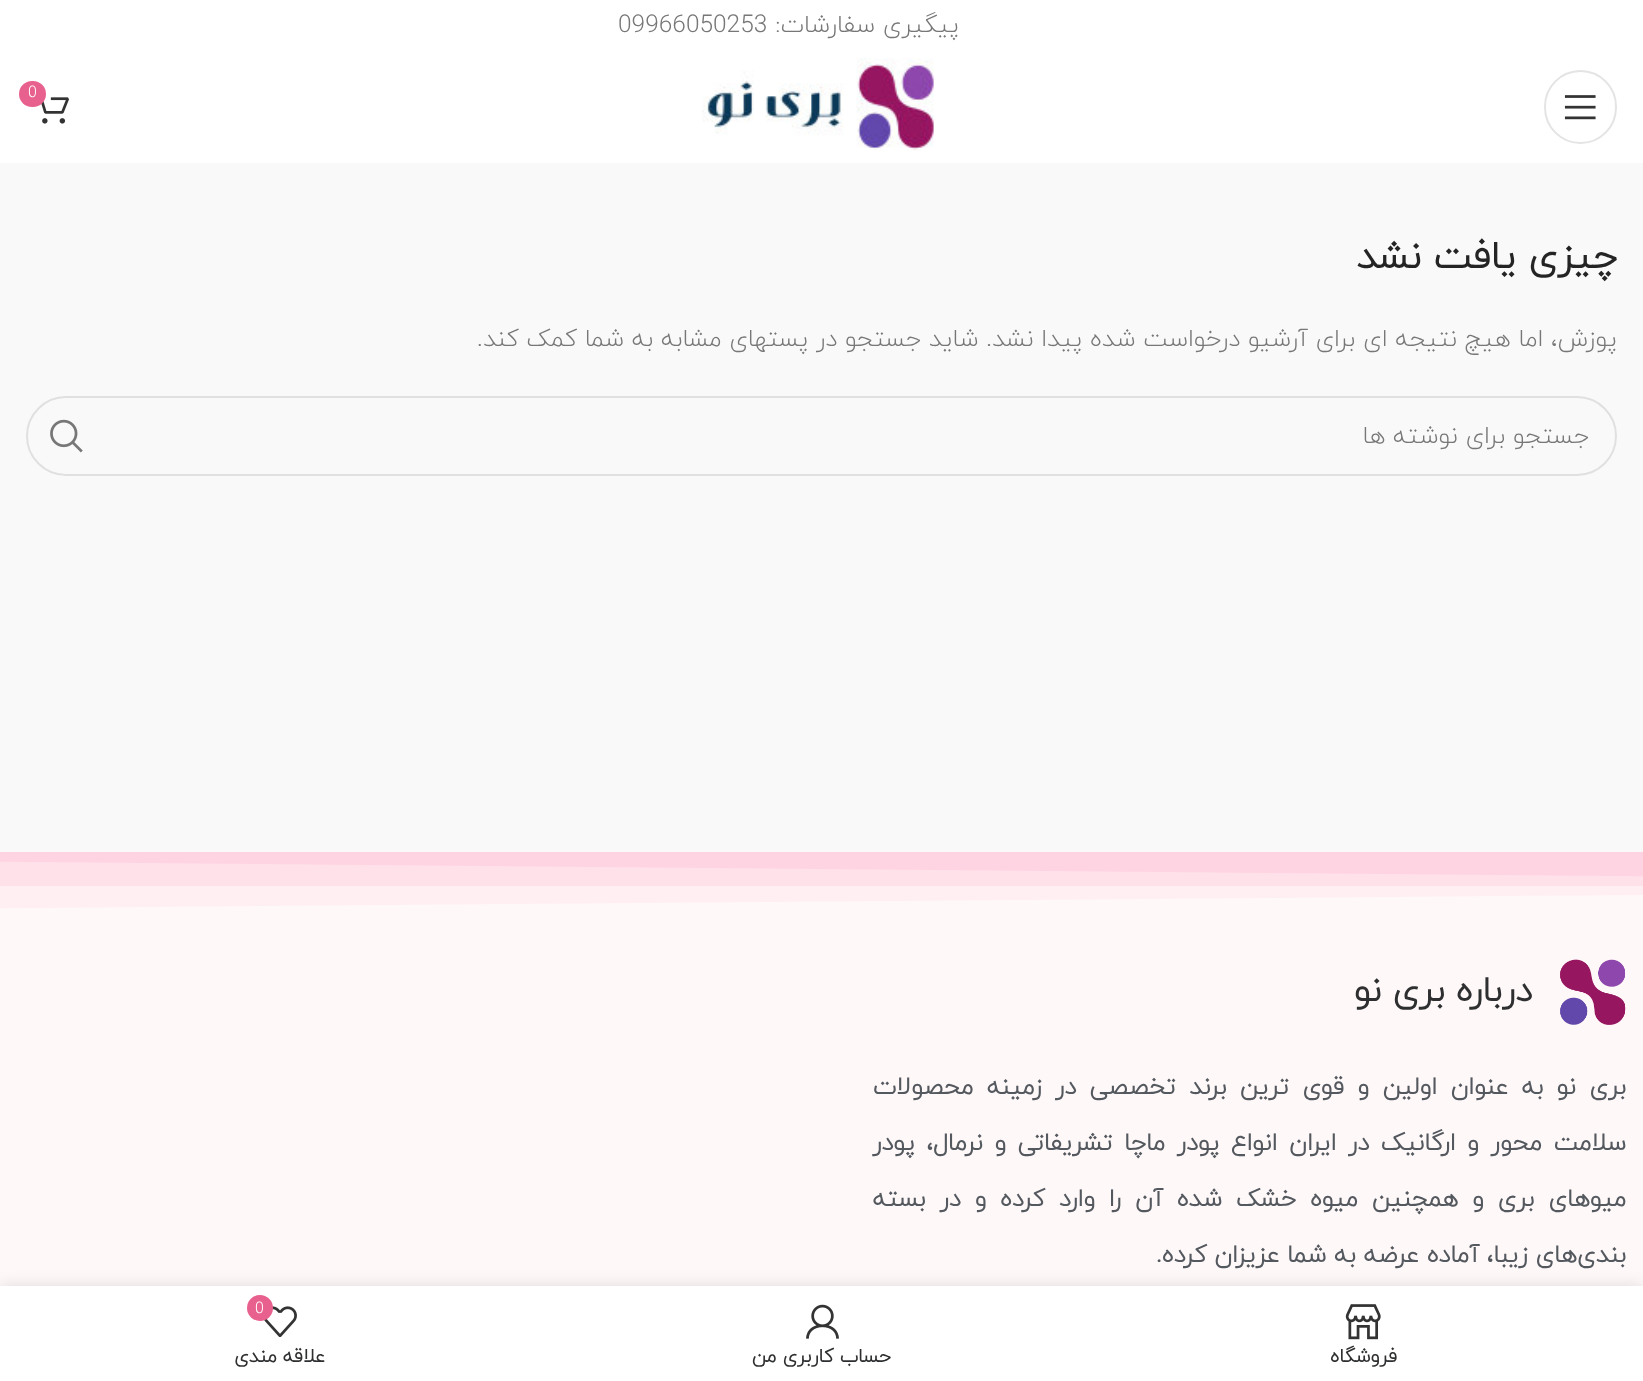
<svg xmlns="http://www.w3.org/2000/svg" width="1643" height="1381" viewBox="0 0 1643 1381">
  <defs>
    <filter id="blur1" x="-50%" y="-200%" width="200%" height="500%"><feGaussianBlur stdDeviation="8"/></filter>
  </defs>
  <rect width="100%" height="100%" fill="#ffffff"/>
  <text x="959" y="32" font-family="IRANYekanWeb" font-size="24.5" font-weight="300" direction="rtl" fill="#777777">پیگیری سفارشات:</text>
  <text x="618" y="32" font-family="IRANYekanWeb" font-size="24.5" font-weight="300" fill="#777777">09966050253</text>
  <rect x="1545" y="71" width="71" height="72" rx="35.5" fill="none" stroke="#e4e4e4" stroke-width="2"/>
  <image x="1564" y="95" width="32" height="25" href="img1.png"/>
  <image x="702" y="58" width="232" height="93" href="img2.png"/>
  <image x="41" y="97" width="28" height="27" href="img3.png"/>
  <rect x="19" y="81" width="27" height="26" rx="13" fill="#e8618e"/>
  <text x="28" y="97" font-family="IRANYekanWeb" font-size="16" font-weight="300" fill="#ffffff">0</text>
  <rect x="0" y="163" width="1643" height="689" fill="#f9f9f9"/>
  <text x="1617" y="268" font-family="IRANYekanWeb" font-size="38.5" font-weight="bold" direction="rtl" fill="#242424">چیزی یافت نشد</text>
  <text x="1617" y="346" font-family="IRANYekanWeb" font-size="24.5" font-weight="300" direction="rtl" fill="#777777">پوزش، اما هیچ نتیجه ای برای آرشیو درخواست شده پیدا نشد. شاید جستجو در پستهای مشابه به شما کمک کند.</text>
  <rect x="27" y="397" width="1589" height="78" rx="39" fill="none" stroke="#e0e0e0" stroke-width="2"/>
  <text x="1589" y="443" font-family="IRANYekanWeb" font-size="24.5" font-weight="300" direction="rtl" fill="#777777">جستجو برای نوشته ها</text>
  <image x="50" y="419" width="33" height="34" href="img4.png"/>
  <rect x="0" y="886" width="1643" height="400" fill="#fff8f8"/>
  <rect x="0" y="861" width="1643" height="25" fill="#ffe6ed"/>
  <path d="M-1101 852H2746V886Z" fill="#ffd4e2"/>
  <path d="M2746 852H-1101V917L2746 886Z" fill="#ffd4e2" fill-opacity="0.25"/>
  <image x="1560" y="959" width="66" height="66" href="img5.png"/>
  <text x="1532" y="1001" font-family="IRANYekanWeb" font-size="35" font-weight="bold" direction="rtl" fill="#2e2f30">درباره بری نو</text>
  <text x="1626" y="1094" word-spacing="5.75" font-family="IRANYekanWeb" font-size="24.5" font-weight="bold" direction="rtl" fill="#54595f">بری نو به عنوان اولین و قوی ترین برند تخصصی در زمینه محصولات</text>
  <text x="1626" y="1150" word-spacing="4" font-family="IRANYekanWeb" font-size="24.5" font-weight="bold" direction="rtl" fill="#54595f">سلامت محور و ارگانیک در ایران انواع پودر ماچا تشریفاتی و نرمال، پودر</text>
  <text x="1626" y="1206" word-spacing="6.25" font-family="IRANYekanWeb" font-size="24.5" font-weight="bold" direction="rtl" fill="#54595f">میو‌های بری و همچنین میوه خشک شده آن را وارد کرده و در بسته</text>
  <text x="1626" y="1262" font-family="IRANYekanWeb" font-size="24.5" font-weight="bold" direction="rtl" fill="#54595f">بندی‌های زیبا، آماده عرضه به شما عزیزان کرده.</text>
  <rect x="0" y="1286" width="1643" height="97" fill="#000000" fill-opacity="0.12" filter="url(#blur1)"/>
  <rect x="0" y="1286" width="1643" height="95" fill="#ffffff"/>
  <image x="1345" y="1304" width="36" height="36" href="img6.png"/>
  <text x="1397" y="1362" font-family="IRANYekanWeb" font-size="19.25" font-weight="bold" direction="rtl" fill="#2e2f30">فروشگاه</text>
  <image x="806" y="1304" width="33" height="35" href="img7.png"/>
  <text x="891" y="1362" font-family="IRANYekanWeb" font-size="19.25" font-weight="bold" direction="rtl" fill="#2e2f30">حساب کاربری من</text>
  <image x="264" y="1306" width="33" height="31" href="img8.png"/>
  <circle cx="260" cy="1308" r="13" fill="#e8618e"/>
  <text x="255" y="1313" font-family="IRANYekanWeb" font-size="16" font-weight="300" fill="#ffffff">0</text>
  <text x="325" y="1362" font-family="IRANYekanWeb" font-size="19.25" font-weight="bold" direction="rtl" fill="#2e2f30">علاقه مندی</text>
</svg>
